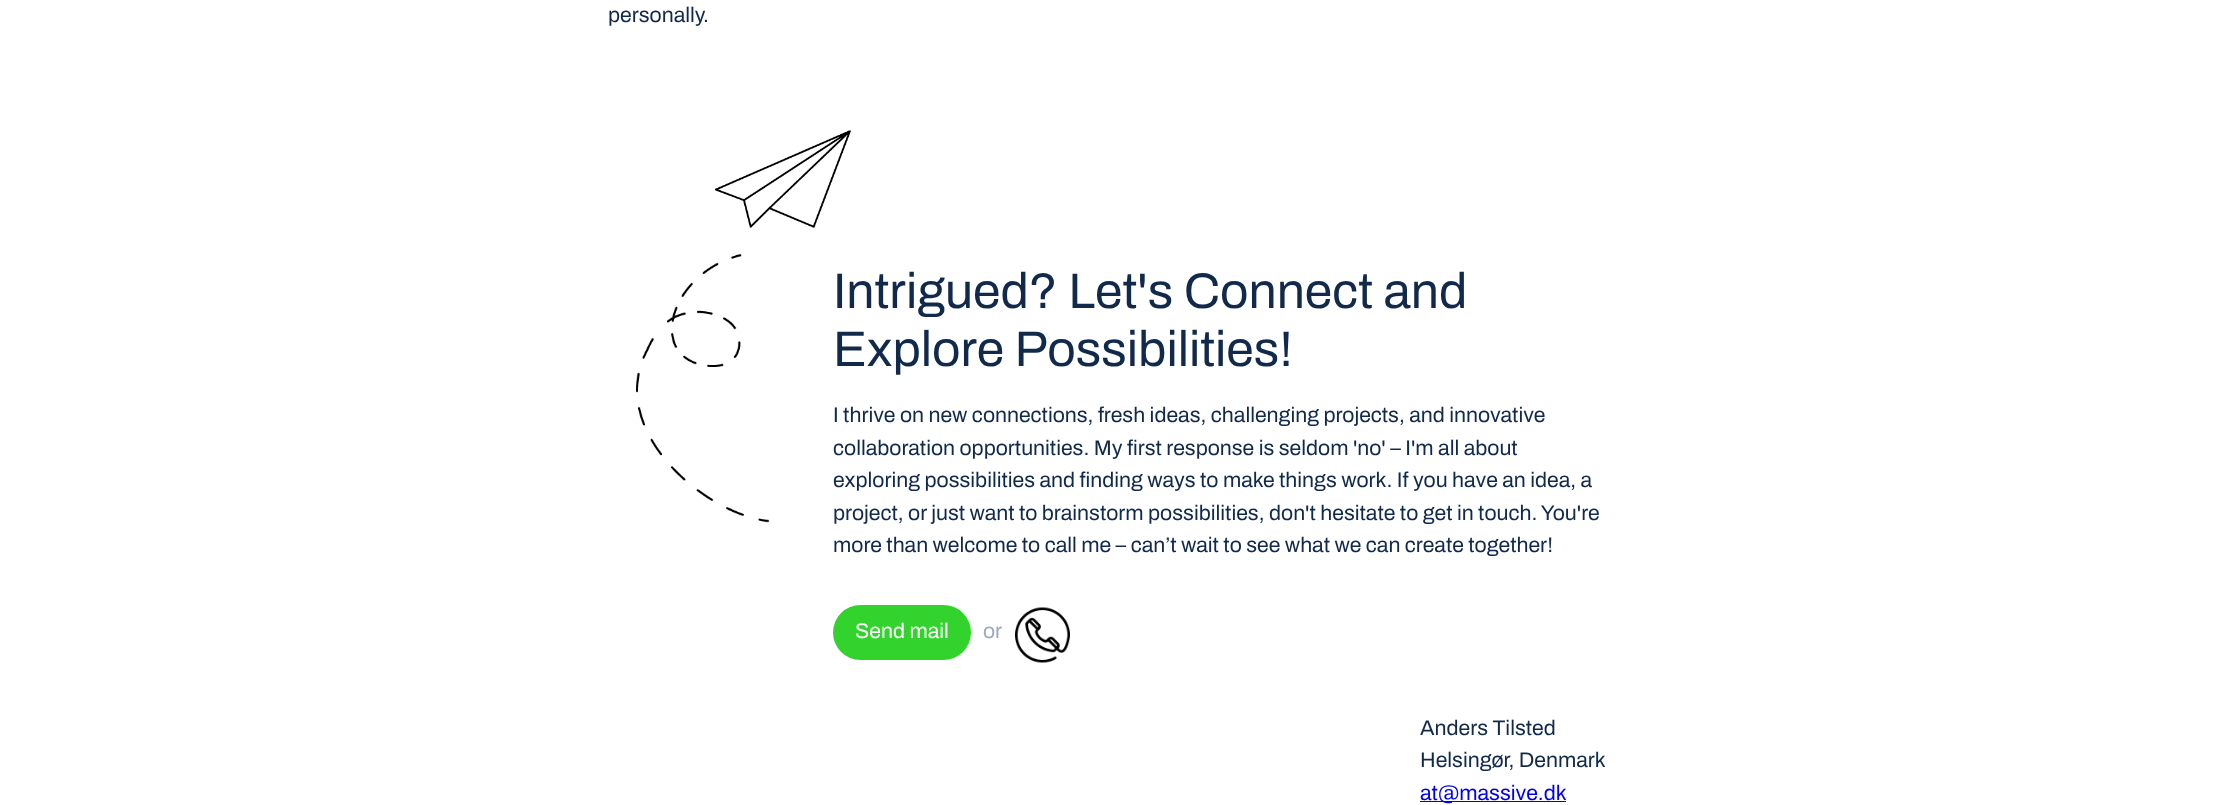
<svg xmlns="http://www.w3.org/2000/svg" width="2214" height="805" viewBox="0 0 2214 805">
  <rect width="100%" height="100%" fill="#ffffff"/>
  <text x="608" y="22" font-family="Archivo" font-size="21.25" font-weight="600" fill="#11294a">personally.</text>
  <image x="714" y="130" width="138" height="98" href="img1.png"/>
  <image x="636" y="253" width="134" height="270" href="img2.png"/>
  <text x="833" y="308" font-family="Archivo" font-size="50" font-weight="600" fill="#11294a">Intrigued? Let's Connect and</text>
  <text x="833" y="366" font-family="Archivo" font-size="50" font-weight="600" fill="#11294a">Explore Possibilities!</text>
  <text x="833" y="422" font-family="Archivo" font-size="21.25" font-weight="600" fill="#11294a">I thrive on new connections, fresh ideas, challenging projects, and innovative</text>
  <text x="833" y="455" font-family="Archivo" font-size="21.25" font-weight="600" fill="#11294a">collaboration opportunities. My first response is seldom 'no' – I'm all about</text>
  <text x="833" y="487" font-family="Archivo" font-size="21.25" font-weight="600" fill="#11294a">exploring possibilities and finding ways to make things work. If you have an idea, a</text>
  <text x="833" y="520" font-family="Archivo" font-size="21.25" font-weight="600" fill="#11294a">project, or just want to brainstorm possibilities, don't hesitate to get in touch. You're</text>
  <text x="833" y="552" font-family="Archivo" font-size="21.25" font-weight="600" fill="#11294a">more than welcome to call me – can’t wait to see what we can create together!</text>
  <rect x="833" y="605" width="138" height="55" rx="27.5" fill="#32d32c"/>
  <text x="855" y="638" font-family="Archivo" font-size="21.25" font-weight="600" fill="#ffffff">Send mail</text>
  <text x="983" y="638" font-family="Archivo" font-size="21.25" font-weight="600" fill="#a0a9b7">or</text>
  <image x="1015" y="607" width="55" height="56" href="img3.png"/>
  <text x="1420" y="735" font-family="Archivo" font-size="21.25" font-weight="600" fill="#11294a">Anders Tilsted</text>
  <text x="1420" y="767" font-family="Archivo" font-size="21.25" font-weight="600" fill="#11294a">Helsingør, Denmark</text>
  <rect x="1420" y="801" width="146" height="1" fill="#0000ee"/>
  <text x="1420" y="800" font-family="Archivo" font-size="21.25" font-weight="600" fill="#0000ee">at@massive.dk</text>
</svg>
